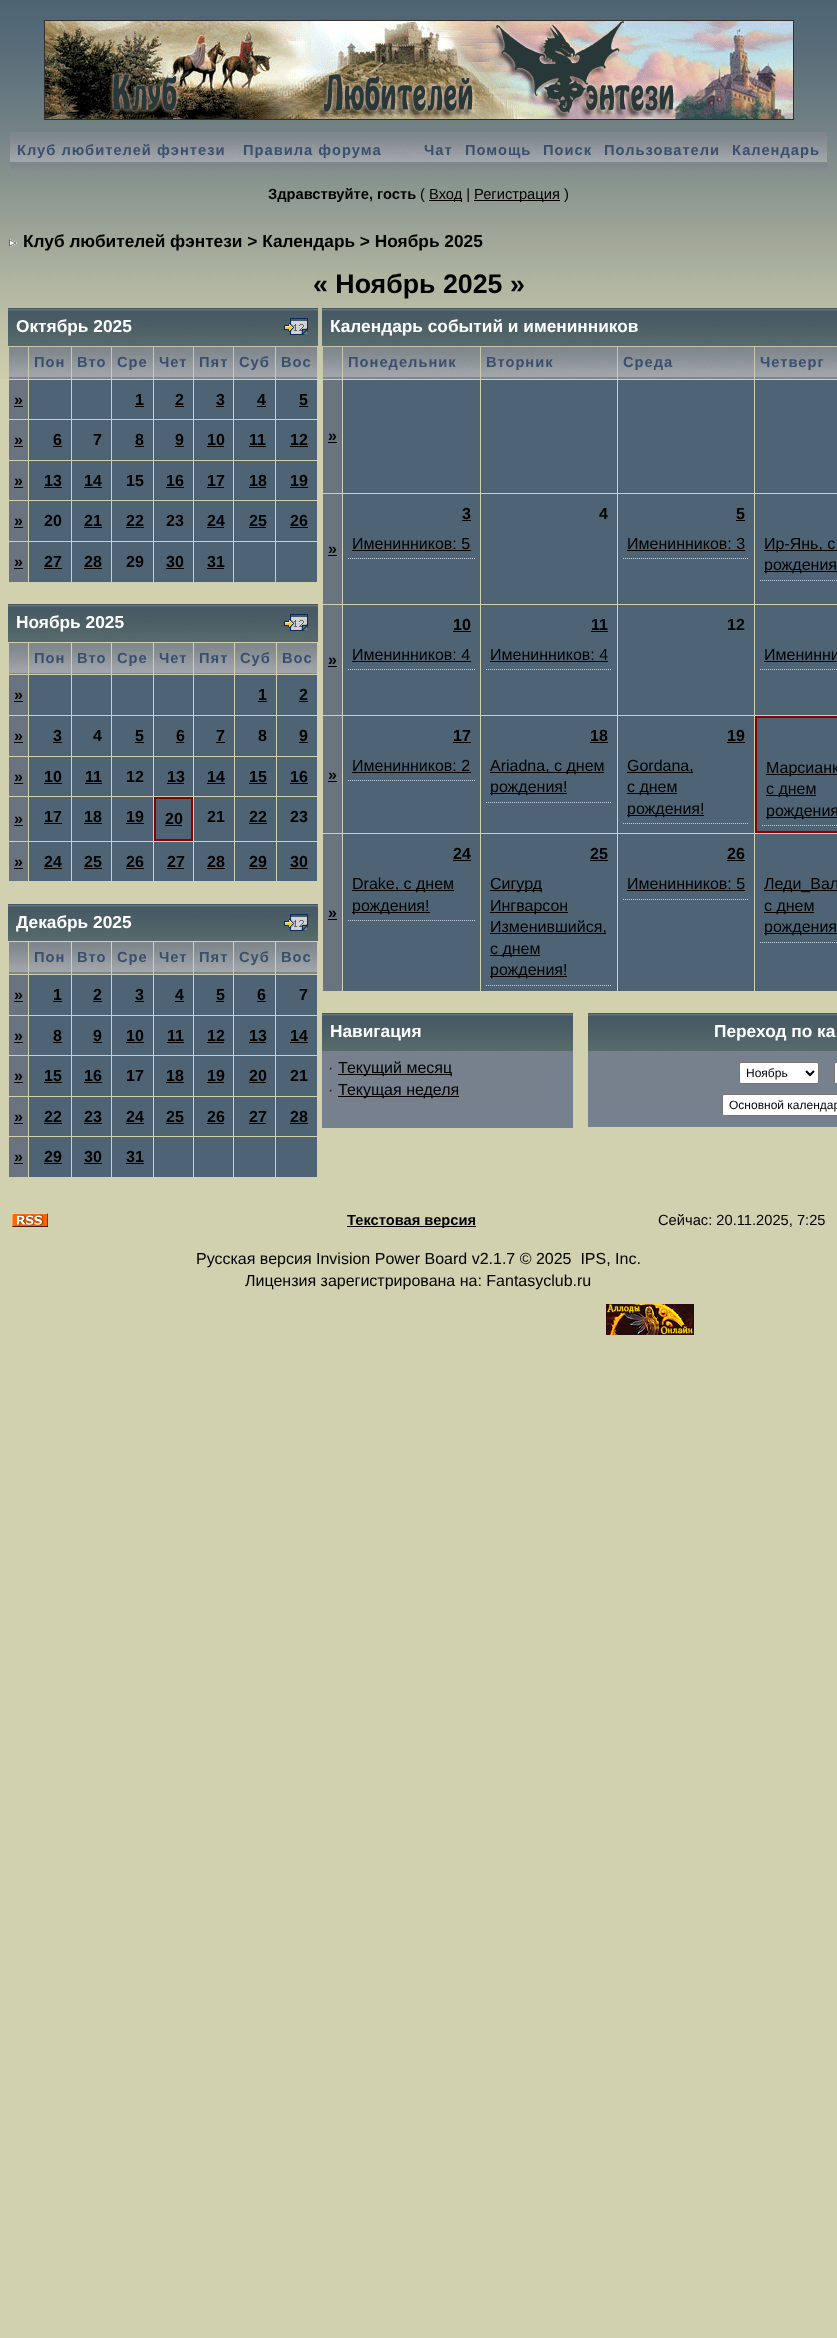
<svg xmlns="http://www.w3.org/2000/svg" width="837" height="2338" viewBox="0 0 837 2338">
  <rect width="100%" height="100%" fill="#d1d0af"/>
  <image x="0" y="0" width="837" height="379" href="img1.png"/>
  <image x="44" y="20" width="750" height="100" href="img2.png"/>
  <image x="10" y="132" width="817" height="38" href="img3.png"/>
  <text x="17" y="155" font-family="Liberation Sans" font-size="14.7" font-weight="bold" letter-spacing="1" fill="#3a4f6c">Клуб любителей фэнтези</text>
  <text x="243" y="155" font-family="Liberation Sans" font-size="14.7" font-weight="bold" letter-spacing="1" fill="#3a4f6c">Правила форума</text>
  <text x="424" y="155" font-family="Liberation Sans" font-size="14.7" font-weight="bold" letter-spacing="1" fill="#3a4f6c">Чат</text>
  <text x="465" y="155" font-family="Liberation Sans" font-size="14.7" font-weight="bold" letter-spacing="1" fill="#3a4f6c">Помощь</text>
  <text x="543" y="155" font-family="Liberation Sans" font-size="14.7" font-weight="bold" letter-spacing="1" fill="#3a4f6c">Поиск</text>
  <text x="604" y="155" font-family="Liberation Sans" font-size="14.7" font-weight="bold" letter-spacing="1" fill="#3a4f6c">Пользователи</text>
  <text x="732" y="155" font-family="Liberation Sans" font-size="14.7" font-weight="bold" letter-spacing="1" fill="#3a4f6c">Календарь</text>
  <text x="268" y="199" font-family="Liberation Sans" font-size="14.7" font-weight="bold" fill="#000000">Здравствуйте, гость</text>
  <text x="420" y="199" font-family="Liberation Sans" font-size="14.7" fill="#000000">(</text>
  <rect x="429" y="200" width="33" height="1" fill="#000000"/>
  <text x="429" y="199" font-family="Liberation Sans" font-size="14.7" fill="#000000">Вход |</text>
  <rect x="474" y="200" width="86" height="1" fill="#000000"/>
  <text x="474" y="199" font-family="Liberation Sans" font-size="14.7" fill="#000000">Регистрация )</text>
  <image x="9" y="239" width="8" height="8" href="img4.png"/>
  <text x="23" y="247" font-family="Liberation Sans" font-size="17.3" font-weight="bold" fill="#000000">Клуб любителей фэнтези &gt; Календарь &gt; Ноябрь 2025</text>
  <text x="313" y="293" font-family="Liberation Sans" font-size="26.75" font-weight="bold" fill="#000000">« Ноябрь 2025 »</text>
  <image x="8" y="308" width="310" height="38" href="img5.png"/>
  <text x="16" y="332" font-family="Liberation Sans" font-size="17.3" font-weight="bold" fill="#ffffff">Октябрь 2025</text>
  <image x="284" y="318" width="24" height="17" href="img6.png"/>
  <image x="9" y="347" width="19" height="32" href="img7.png"/>
  <image x="29" y="347" width="42" height="32" href="img8.png"/>
  <text x="34" y="367" font-family="Liberation Sans" font-size="14.7" font-weight="bold" letter-spacing="1" fill="#3a4f6c">Пон</text>
  <image x="72" y="347" width="39" height="32" href="img9.png"/>
  <text x="77" y="367" font-family="Liberation Sans" font-size="14.7" font-weight="bold" letter-spacing="1" fill="#3a4f6c">Вто</text>
  <image x="112" y="347" width="41" height="32" href="img10.png"/>
  <text x="117" y="367" font-family="Liberation Sans" font-size="14.7" font-weight="bold" letter-spacing="1" fill="#3a4f6c">Сре</text>
  <image x="154" y="347" width="39" height="32" href="img9.png"/>
  <text x="159" y="367" font-family="Liberation Sans" font-size="14.7" font-weight="bold" letter-spacing="1" fill="#3a4f6c">Чет</text>
  <image x="194" y="347" width="39" height="32" href="img9.png"/>
  <text x="199" y="367" font-family="Liberation Sans" font-size="14.7" font-weight="bold" letter-spacing="1" fill="#3a4f6c">Пят</text>
  <image x="234" y="347" width="41" height="32" href="img10.png"/>
  <text x="239" y="367" font-family="Liberation Sans" font-size="14.7" font-weight="bold" letter-spacing="1" fill="#3a4f6c">Суб</text>
  <image x="276" y="347" width="41" height="32" href="img10.png"/>
  <text x="281" y="367" font-family="Liberation Sans" font-size="14.7" font-weight="bold" letter-spacing="1" fill="#3a4f6c">Вос</text>
  <rect x="9" y="380" width="19" height="39" fill="#6a7480"/>
  <text x="14" y="405" font-family="Liberation Sans" font-size="16" font-weight="bold" fill="#000000">»</text>
  <rect x="14" y="406" width="9" height="1" fill="#000000"/>
  <rect x="29" y="380" width="42" height="39" fill="#4e6474"/>
  <rect x="72" y="380" width="39" height="39" fill="#4e6474"/>
  <rect x="112" y="380" width="41" height="39" fill="#4e6474"/>
  <text x="135" y="405" font-family="Liberation Sans" font-size="16" font-weight="bold" fill="#000000">1</text>
  <rect x="135" y="406" width="9" height="1" fill="#000000"/>
  <rect x="154" y="380" width="39" height="39" fill="#4e6474"/>
  <text x="175" y="405" font-family="Liberation Sans" font-size="16" font-weight="bold" fill="#000000">2</text>
  <rect x="175" y="406" width="9" height="1" fill="#000000"/>
  <rect x="194" y="380" width="39" height="39" fill="#4e6474"/>
  <text x="216" y="405" font-family="Liberation Sans" font-size="16" font-weight="bold" fill="#000000">3</text>
  <rect x="216" y="406" width="8" height="1" fill="#000000"/>
  <rect x="234" y="380" width="41" height="39" fill="#4e6474"/>
  <text x="257" y="405" font-family="Liberation Sans" font-size="16" font-weight="bold" fill="#000000">4</text>
  <rect x="257" y="406" width="9" height="1" fill="#000000"/>
  <rect x="276" y="380" width="41" height="39" fill="#4e6474"/>
  <text x="299" y="405" font-family="Liberation Sans" font-size="16" font-weight="bold" fill="#000000">5</text>
  <rect x="299" y="406" width="9" height="1" fill="#000000"/>
  <rect x="9" y="420" width="19" height="40" fill="#6a7480"/>
  <text x="14" y="445" font-family="Liberation Sans" font-size="16" font-weight="bold" fill="#000000">»</text>
  <rect x="14" y="446" width="9" height="1" fill="#000000"/>
  <rect x="29" y="420" width="42" height="40" fill="#4e6474"/>
  <text x="53" y="445" font-family="Liberation Sans" font-size="16" font-weight="bold" fill="#000000">6</text>
  <rect x="53" y="446" width="9" height="1" fill="#000000"/>
  <rect x="72" y="420" width="39" height="40" fill="#4e6474"/>
  <text x="93" y="445" font-family="Liberation Sans" font-size="16" font-weight="bold" fill="#000000">7</text>
  <rect x="112" y="420" width="41" height="40" fill="#4e6474"/>
  <text x="135" y="445" font-family="Liberation Sans" font-size="16" font-weight="bold" fill="#000000">8</text>
  <rect x="135" y="446" width="9" height="1" fill="#000000"/>
  <rect x="154" y="420" width="39" height="40" fill="#4e6474"/>
  <text x="175" y="445" font-family="Liberation Sans" font-size="16" font-weight="bold" fill="#000000">9</text>
  <rect x="175" y="446" width="9" height="1" fill="#000000"/>
  <rect x="194" y="420" width="39" height="40" fill="#4e6474"/>
  <text x="207" y="445" font-family="Liberation Sans" font-size="16" font-weight="bold" fill="#000000">10</text>
  <rect x="207" y="446" width="17" height="1" fill="#000000"/>
  <rect x="234" y="420" width="41" height="40" fill="#4e6474"/>
  <text x="249" y="445" font-family="Liberation Sans" font-size="16" font-weight="bold" fill="#000000">11</text>
  <rect x="249" y="446" width="17" height="1" fill="#000000"/>
  <rect x="276" y="420" width="41" height="40" fill="#4e6474"/>
  <text x="290" y="445" font-family="Liberation Sans" font-size="16" font-weight="bold" fill="#000000">12</text>
  <rect x="290" y="446" width="18" height="1" fill="#000000"/>
  <rect x="9" y="461" width="19" height="39" fill="#6a7480"/>
  <text x="14" y="486" font-family="Liberation Sans" font-size="16" font-weight="bold" fill="#000000">»</text>
  <rect x="14" y="487" width="9" height="1" fill="#000000"/>
  <rect x="29" y="461" width="42" height="39" fill="#4e6474"/>
  <text x="44" y="486" font-family="Liberation Sans" font-size="16" font-weight="bold" fill="#000000">13</text>
  <rect x="44" y="487" width="18" height="1" fill="#000000"/>
  <rect x="72" y="461" width="39" height="39" fill="#4e6474"/>
  <text x="84" y="486" font-family="Liberation Sans" font-size="16" font-weight="bold" fill="#000000">14</text>
  <rect x="84" y="487" width="18" height="1" fill="#000000"/>
  <rect x="112" y="461" width="41" height="39" fill="#4e6474"/>
  <text x="126" y="486" font-family="Liberation Sans" font-size="16" font-weight="bold" fill="#000000">15</text>
  <rect x="154" y="461" width="39" height="39" fill="#4e6474"/>
  <text x="166" y="486" font-family="Liberation Sans" font-size="16" font-weight="bold" fill="#000000">16</text>
  <rect x="166" y="487" width="18" height="1" fill="#000000"/>
  <rect x="194" y="461" width="39" height="39" fill="#4e6474"/>
  <text x="207" y="486" font-family="Liberation Sans" font-size="16" font-weight="bold" fill="#000000">17</text>
  <rect x="207" y="487" width="17" height="1" fill="#000000"/>
  <rect x="234" y="461" width="41" height="39" fill="#4e6474"/>
  <text x="249" y="486" font-family="Liberation Sans" font-size="16" font-weight="bold" fill="#000000">18</text>
  <rect x="249" y="487" width="17" height="1" fill="#000000"/>
  <rect x="276" y="461" width="41" height="39" fill="#4e6474"/>
  <text x="290" y="486" font-family="Liberation Sans" font-size="16" font-weight="bold" fill="#000000">19</text>
  <rect x="290" y="487" width="18" height="1" fill="#000000"/>
  <rect x="9" y="501" width="19" height="40" fill="#6a7480"/>
  <text x="14" y="526" font-family="Liberation Sans" font-size="16" font-weight="bold" fill="#000000">»</text>
  <rect x="14" y="527" width="9" height="1" fill="#000000"/>
  <rect x="29" y="501" width="42" height="40" fill="#4e6474"/>
  <text x="44" y="526" font-family="Liberation Sans" font-size="16" font-weight="bold" fill="#000000">20</text>
  <rect x="72" y="501" width="39" height="40" fill="#4e6474"/>
  <text x="84" y="526" font-family="Liberation Sans" font-size="16" font-weight="bold" fill="#000000">21</text>
  <rect x="84" y="527" width="18" height="1" fill="#000000"/>
  <rect x="112" y="501" width="41" height="40" fill="#4e6474"/>
  <text x="126" y="526" font-family="Liberation Sans" font-size="16" font-weight="bold" fill="#000000">22</text>
  <rect x="126" y="527" width="18" height="1" fill="#000000"/>
  <rect x="154" y="501" width="39" height="40" fill="#4e6474"/>
  <text x="166" y="526" font-family="Liberation Sans" font-size="16" font-weight="bold" fill="#000000">23</text>
  <rect x="194" y="501" width="39" height="40" fill="#4e6474"/>
  <text x="207" y="526" font-family="Liberation Sans" font-size="16" font-weight="bold" fill="#000000">24</text>
  <rect x="207" y="527" width="17" height="1" fill="#000000"/>
  <rect x="234" y="501" width="41" height="40" fill="#4e6474"/>
  <text x="249" y="526" font-family="Liberation Sans" font-size="16" font-weight="bold" fill="#000000">25</text>
  <rect x="249" y="527" width="17" height="1" fill="#000000"/>
  <rect x="276" y="501" width="41" height="40" fill="#4e6474"/>
  <text x="290" y="526" font-family="Liberation Sans" font-size="16" font-weight="bold" fill="#000000">26</text>
  <rect x="290" y="527" width="18" height="1" fill="#000000"/>
  <rect x="9" y="542" width="19" height="40" fill="#6a7480"/>
  <text x="14" y="567" font-family="Liberation Sans" font-size="16" font-weight="bold" fill="#000000">»</text>
  <rect x="14" y="568" width="9" height="1" fill="#000000"/>
  <rect x="29" y="542" width="42" height="40" fill="#4e6474"/>
  <text x="44" y="567" font-family="Liberation Sans" font-size="16" font-weight="bold" fill="#000000">27</text>
  <rect x="44" y="568" width="18" height="1" fill="#000000"/>
  <rect x="72" y="542" width="39" height="40" fill="#4e6474"/>
  <text x="84" y="567" font-family="Liberation Sans" font-size="16" font-weight="bold" fill="#000000">28</text>
  <rect x="84" y="568" width="18" height="1" fill="#000000"/>
  <rect x="112" y="542" width="41" height="40" fill="#4e6474"/>
  <text x="126" y="567" font-family="Liberation Sans" font-size="16" font-weight="bold" fill="#000000">29</text>
  <rect x="154" y="542" width="39" height="40" fill="#4e6474"/>
  <text x="166" y="567" font-family="Liberation Sans" font-size="16" font-weight="bold" fill="#000000">30</text>
  <rect x="166" y="568" width="18" height="1" fill="#000000"/>
  <rect x="194" y="542" width="39" height="40" fill="#4e6474"/>
  <text x="207" y="567" font-family="Liberation Sans" font-size="16" font-weight="bold" fill="#000000">31</text>
  <rect x="207" y="568" width="17" height="1" fill="#000000"/>
  <rect x="234" y="542" width="41" height="40" fill="#4e6474"/>
  <rect x="276" y="542" width="41" height="40" fill="#4e6474"/>
  <image x="8" y="604" width="310" height="38" href="img5.png"/>
  <text x="16" y="628" font-family="Liberation Sans" font-size="17.3" font-weight="bold" fill="#ffffff">Ноябрь 2025</text>
  <image x="284" y="614" width="24" height="17" href="img6.png"/>
  <image x="9" y="643" width="19" height="31" href="img11.png"/>
  <image x="29" y="643" width="42" height="31" href="img12.png"/>
  <text x="34" y="663" font-family="Liberation Sans" font-size="14.7" font-weight="bold" letter-spacing="1" fill="#3a4f6c">Пон</text>
  <image x="72" y="643" width="39" height="31" href="img13.png"/>
  <text x="77" y="663" font-family="Liberation Sans" font-size="14.7" font-weight="bold" letter-spacing="1" fill="#3a4f6c">Вто</text>
  <image x="112" y="643" width="41" height="31" href="img14.png"/>
  <text x="117" y="663" font-family="Liberation Sans" font-size="14.7" font-weight="bold" letter-spacing="1" fill="#3a4f6c">Сре</text>
  <image x="154" y="643" width="39" height="31" href="img13.png"/>
  <text x="159" y="663" font-family="Liberation Sans" font-size="14.7" font-weight="bold" letter-spacing="1" fill="#3a4f6c">Чет</text>
  <image x="194" y="643" width="40" height="31" href="img15.png"/>
  <text x="199" y="663" font-family="Liberation Sans" font-size="14.7" font-weight="bold" letter-spacing="1" fill="#3a4f6c">Пят</text>
  <image x="235" y="643" width="41" height="31" href="img14.png"/>
  <text x="240" y="663" font-family="Liberation Sans" font-size="14.7" font-weight="bold" letter-spacing="1" fill="#3a4f6c">Суб</text>
  <image x="277" y="643" width="40" height="31" href="img15.png"/>
  <text x="282" y="663" font-family="Liberation Sans" font-size="14.7" font-weight="bold" letter-spacing="1" fill="#3a4f6c">Вос</text>
  <rect x="9" y="675" width="19" height="40" fill="#6a7480"/>
  <text x="14" y="700" font-family="Liberation Sans" font-size="16" font-weight="bold" fill="#000000">»</text>
  <rect x="14" y="701" width="9" height="1" fill="#000000"/>
  <rect x="29" y="675" width="42" height="40" fill="#4e6474"/>
  <rect x="72" y="675" width="39" height="40" fill="#4e6474"/>
  <rect x="112" y="675" width="41" height="40" fill="#4e6474"/>
  <rect x="154" y="675" width="39" height="40" fill="#4e6474"/>
  <rect x="194" y="675" width="40" height="40" fill="#4e6474"/>
  <rect x="235" y="675" width="41" height="40" fill="#4e6474"/>
  <text x="258" y="700" font-family="Liberation Sans" font-size="16" font-weight="bold" fill="#000000">1</text>
  <rect x="258" y="701" width="9" height="1" fill="#000000"/>
  <rect x="277" y="675" width="40" height="40" fill="#4e6474"/>
  <text x="299" y="700" font-family="Liberation Sans" font-size="16" font-weight="bold" fill="#000000">2</text>
  <rect x="299" y="701" width="9" height="1" fill="#000000"/>
  <rect x="9" y="716" width="19" height="40" fill="#6a7480"/>
  <text x="14" y="741" font-family="Liberation Sans" font-size="16" font-weight="bold" fill="#000000">»</text>
  <rect x="14" y="742" width="9" height="1" fill="#000000"/>
  <rect x="29" y="716" width="42" height="40" fill="#4e6474"/>
  <text x="53" y="741" font-family="Liberation Sans" font-size="16" font-weight="bold" fill="#000000">3</text>
  <rect x="53" y="742" width="9" height="1" fill="#000000"/>
  <rect x="72" y="716" width="39" height="40" fill="#4e6474"/>
  <text x="93" y="741" font-family="Liberation Sans" font-size="16" font-weight="bold" fill="#000000">4</text>
  <rect x="112" y="716" width="41" height="40" fill="#4e6474"/>
  <text x="135" y="741" font-family="Liberation Sans" font-size="16" font-weight="bold" fill="#000000">5</text>
  <rect x="135" y="742" width="9" height="1" fill="#000000"/>
  <rect x="154" y="716" width="39" height="40" fill="#4e6474"/>
  <text x="176" y="741" font-family="Liberation Sans" font-size="16" font-weight="bold" fill="#000000">6</text>
  <rect x="176" y="742" width="8" height="1" fill="#000000"/>
  <rect x="194" y="716" width="40" height="40" fill="#4e6474"/>
  <text x="216" y="741" font-family="Liberation Sans" font-size="16" font-weight="bold" fill="#000000">7</text>
  <rect x="216" y="742" width="9" height="1" fill="#000000"/>
  <rect x="235" y="716" width="41" height="40" fill="#4e6474"/>
  <text x="258" y="741" font-family="Liberation Sans" font-size="16" font-weight="bold" fill="#000000">8</text>
  <rect x="277" y="716" width="40" height="40" fill="#4e6474"/>
  <text x="299" y="741" font-family="Liberation Sans" font-size="16" font-weight="bold" fill="#000000">9</text>
  <rect x="299" y="742" width="9" height="1" fill="#000000"/>
  <rect x="9" y="757" width="19" height="39" fill="#6a7480"/>
  <text x="14" y="782" font-family="Liberation Sans" font-size="16" font-weight="bold" fill="#000000">»</text>
  <rect x="14" y="783" width="9" height="1" fill="#000000"/>
  <rect x="29" y="757" width="42" height="39" fill="#4e6474"/>
  <text x="44" y="782" font-family="Liberation Sans" font-size="16" font-weight="bold" fill="#000000">10</text>
  <rect x="44" y="783" width="18" height="1" fill="#000000"/>
  <rect x="72" y="757" width="39" height="39" fill="#4e6474"/>
  <text x="85" y="782" font-family="Liberation Sans" font-size="16" font-weight="bold" fill="#000000">11</text>
  <rect x="85" y="783" width="17" height="1" fill="#000000"/>
  <rect x="112" y="757" width="41" height="39" fill="#4e6474"/>
  <text x="126" y="782" font-family="Liberation Sans" font-size="16" font-weight="bold" fill="#000000">12</text>
  <rect x="154" y="757" width="39" height="39" fill="#4e6474"/>
  <text x="167" y="782" font-family="Liberation Sans" font-size="16" font-weight="bold" fill="#000000">13</text>
  <rect x="167" y="783" width="17" height="1" fill="#000000"/>
  <rect x="194" y="757" width="40" height="39" fill="#4e6474"/>
  <text x="207" y="782" font-family="Liberation Sans" font-size="16" font-weight="bold" fill="#000000">14</text>
  <rect x="207" y="783" width="18" height="1" fill="#000000"/>
  <rect x="235" y="757" width="41" height="39" fill="#4e6474"/>
  <text x="249" y="782" font-family="Liberation Sans" font-size="16" font-weight="bold" fill="#000000">15</text>
  <rect x="249" y="783" width="18" height="1" fill="#000000"/>
  <rect x="277" y="757" width="40" height="39" fill="#4e6474"/>
  <text x="290" y="782" font-family="Liberation Sans" font-size="16" font-weight="bold" fill="#000000">16</text>
  <rect x="290" y="783" width="18" height="1" fill="#000000"/>
  <rect x="9" y="797" width="19" height="44" fill="#6a7480"/>
  <text x="14" y="824" font-family="Liberation Sans" font-size="16" font-weight="bold" fill="#000000">»</text>
  <rect x="14" y="825" width="9" height="1" fill="#000000"/>
  <rect x="29" y="797" width="42" height="44" fill="#4e6474"/>
  <text x="44" y="822" font-family="Liberation Sans" font-size="16" font-weight="bold" fill="#000000">17</text>
  <rect x="44" y="823" width="18" height="1" fill="#000000"/>
  <rect x="72" y="797" width="39" height="44" fill="#4e6474"/>
  <text x="84" y="822" font-family="Liberation Sans" font-size="16" font-weight="bold" fill="#000000">18</text>
  <rect x="84" y="823" width="18" height="1" fill="#000000"/>
  <rect x="112" y="797" width="41" height="44" fill="#4e6474"/>
  <text x="126" y="822" font-family="Liberation Sans" font-size="16" font-weight="bold" fill="#000000">19</text>
  <rect x="126" y="823" width="18" height="1" fill="#000000"/>
  <rect x="155" y="798" width="37" height="42" fill="#4e6474" stroke="#8b0000" stroke-width="2"/>
  <text x="165" y="824" font-family="Liberation Sans" font-size="16" font-weight="bold" fill="#000000">20</text>
  <rect x="165" y="825" width="17" height="1" fill="#000000"/>
  <rect x="194" y="797" width="40" height="44" fill="#4e6474"/>
  <text x="207" y="822" font-family="Liberation Sans" font-size="16" font-weight="bold" fill="#000000">21</text>
  <rect x="235" y="797" width="41" height="44" fill="#4e6474"/>
  <text x="249" y="822" font-family="Liberation Sans" font-size="16" font-weight="bold" fill="#000000">22</text>
  <rect x="249" y="823" width="18" height="1" fill="#000000"/>
  <rect x="277" y="797" width="40" height="44" fill="#4e6474"/>
  <text x="290" y="822" font-family="Liberation Sans" font-size="16" font-weight="bold" fill="#000000">23</text>
  <rect x="9" y="842" width="19" height="39" fill="#6a7480"/>
  <text x="14" y="867" font-family="Liberation Sans" font-size="16" font-weight="bold" fill="#000000">»</text>
  <rect x="14" y="868" width="9" height="1" fill="#000000"/>
  <rect x="29" y="842" width="42" height="39" fill="#4e6474"/>
  <text x="44" y="867" font-family="Liberation Sans" font-size="16" font-weight="bold" fill="#000000">24</text>
  <rect x="44" y="868" width="18" height="1" fill="#000000"/>
  <rect x="72" y="842" width="39" height="39" fill="#4e6474"/>
  <text x="84" y="867" font-family="Liberation Sans" font-size="16" font-weight="bold" fill="#000000">25</text>
  <rect x="84" y="868" width="18" height="1" fill="#000000"/>
  <rect x="112" y="842" width="41" height="39" fill="#4e6474"/>
  <text x="126" y="867" font-family="Liberation Sans" font-size="16" font-weight="bold" fill="#000000">26</text>
  <rect x="126" y="868" width="18" height="1" fill="#000000"/>
  <rect x="154" y="842" width="39" height="39" fill="#4e6474"/>
  <text x="167" y="867" font-family="Liberation Sans" font-size="16" font-weight="bold" fill="#000000">27</text>
  <rect x="167" y="868" width="17" height="1" fill="#000000"/>
  <rect x="194" y="842" width="40" height="39" fill="#4e6474"/>
  <text x="207" y="867" font-family="Liberation Sans" font-size="16" font-weight="bold" fill="#000000">28</text>
  <rect x="207" y="868" width="18" height="1" fill="#000000"/>
  <rect x="235" y="842" width="41" height="39" fill="#4e6474"/>
  <text x="249" y="867" font-family="Liberation Sans" font-size="16" font-weight="bold" fill="#000000">29</text>
  <rect x="249" y="868" width="18" height="1" fill="#000000"/>
  <rect x="277" y="842" width="40" height="39" fill="#4e6474"/>
  <text x="290" y="867" font-family="Liberation Sans" font-size="16" font-weight="bold" fill="#000000">30</text>
  <rect x="290" y="868" width="18" height="1" fill="#000000"/>
  <image x="8" y="904" width="310" height="37" href="img16.png"/>
  <text x="16" y="928" font-family="Liberation Sans" font-size="17.3" font-weight="bold" fill="#ffffff">Декабрь 2025</text>
  <image x="284" y="914" width="24" height="17" href="img6.png"/>
  <image x="9" y="942" width="19" height="32" href="img7.png"/>
  <image x="29" y="942" width="42" height="32" href="img8.png"/>
  <text x="34" y="962" font-family="Liberation Sans" font-size="14.7" font-weight="bold" letter-spacing="1" fill="#3a4f6c">Пон</text>
  <image x="72" y="942" width="39" height="32" href="img9.png"/>
  <text x="77" y="962" font-family="Liberation Sans" font-size="14.7" font-weight="bold" letter-spacing="1" fill="#3a4f6c">Вто</text>
  <image x="112" y="942" width="41" height="32" href="img10.png"/>
  <text x="117" y="962" font-family="Liberation Sans" font-size="14.7" font-weight="bold" letter-spacing="1" fill="#3a4f6c">Сре</text>
  <image x="154" y="942" width="39" height="32" href="img9.png"/>
  <text x="159" y="962" font-family="Liberation Sans" font-size="14.7" font-weight="bold" letter-spacing="1" fill="#3a4f6c">Чет</text>
  <image x="194" y="942" width="39" height="32" href="img9.png"/>
  <text x="199" y="962" font-family="Liberation Sans" font-size="14.7" font-weight="bold" letter-spacing="1" fill="#3a4f6c">Пят</text>
  <image x="234" y="942" width="41" height="32" href="img10.png"/>
  <text x="239" y="962" font-family="Liberation Sans" font-size="14.7" font-weight="bold" letter-spacing="1" fill="#3a4f6c">Суб</text>
  <image x="276" y="942" width="41" height="32" href="img10.png"/>
  <text x="281" y="962" font-family="Liberation Sans" font-size="14.7" font-weight="bold" letter-spacing="1" fill="#3a4f6c">Вос</text>
  <rect x="9" y="975" width="19" height="40" fill="#6a7480"/>
  <text x="14" y="1000" font-family="Liberation Sans" font-size="16" font-weight="bold" fill="#000000">»</text>
  <rect x="14" y="1001" width="9" height="1" fill="#000000"/>
  <rect x="29" y="975" width="42" height="40" fill="#4e6474"/>
  <text x="53" y="1000" font-family="Liberation Sans" font-size="16" font-weight="bold" fill="#000000">1</text>
  <rect x="53" y="1001" width="9" height="1" fill="#000000"/>
  <rect x="72" y="975" width="39" height="40" fill="#4e6474"/>
  <text x="93" y="1000" font-family="Liberation Sans" font-size="16" font-weight="bold" fill="#000000">2</text>
  <rect x="93" y="1001" width="9" height="1" fill="#000000"/>
  <rect x="112" y="975" width="41" height="40" fill="#4e6474"/>
  <text x="135" y="1000" font-family="Liberation Sans" font-size="16" font-weight="bold" fill="#000000">3</text>
  <rect x="135" y="1001" width="9" height="1" fill="#000000"/>
  <rect x="154" y="975" width="39" height="40" fill="#4e6474"/>
  <text x="175" y="1000" font-family="Liberation Sans" font-size="16" font-weight="bold" fill="#000000">4</text>
  <rect x="175" y="1001" width="9" height="1" fill="#000000"/>
  <rect x="194" y="975" width="39" height="40" fill="#4e6474"/>
  <text x="216" y="1000" font-family="Liberation Sans" font-size="16" font-weight="bold" fill="#000000">5</text>
  <rect x="216" y="1001" width="8" height="1" fill="#000000"/>
  <rect x="234" y="975" width="41" height="40" fill="#4e6474"/>
  <text x="257" y="1000" font-family="Liberation Sans" font-size="16" font-weight="bold" fill="#000000">6</text>
  <rect x="257" y="1001" width="9" height="1" fill="#000000"/>
  <rect x="276" y="975" width="41" height="40" fill="#4e6474"/>
  <text x="299" y="1000" font-family="Liberation Sans" font-size="16" font-weight="bold" fill="#000000">7</text>
  <rect x="9" y="1016" width="19" height="39" fill="#6a7480"/>
  <text x="14" y="1041" font-family="Liberation Sans" font-size="16" font-weight="bold" fill="#000000">»</text>
  <rect x="14" y="1042" width="9" height="1" fill="#000000"/>
  <rect x="29" y="1016" width="42" height="39" fill="#4e6474"/>
  <text x="53" y="1041" font-family="Liberation Sans" font-size="16" font-weight="bold" fill="#000000">8</text>
  <rect x="53" y="1042" width="9" height="1" fill="#000000"/>
  <rect x="72" y="1016" width="39" height="39" fill="#4e6474"/>
  <text x="93" y="1041" font-family="Liberation Sans" font-size="16" font-weight="bold" fill="#000000">9</text>
  <rect x="93" y="1042" width="9" height="1" fill="#000000"/>
  <rect x="112" y="1016" width="41" height="39" fill="#4e6474"/>
  <text x="126" y="1041" font-family="Liberation Sans" font-size="16" font-weight="bold" fill="#000000">10</text>
  <rect x="126" y="1042" width="18" height="1" fill="#000000"/>
  <rect x="154" y="1016" width="39" height="39" fill="#4e6474"/>
  <text x="167" y="1041" font-family="Liberation Sans" font-size="16" font-weight="bold" fill="#000000">11</text>
  <rect x="167" y="1042" width="17" height="1" fill="#000000"/>
  <rect x="194" y="1016" width="39" height="39" fill="#4e6474"/>
  <text x="207" y="1041" font-family="Liberation Sans" font-size="16" font-weight="bold" fill="#000000">12</text>
  <rect x="207" y="1042" width="17" height="1" fill="#000000"/>
  <rect x="234" y="1016" width="41" height="39" fill="#4e6474"/>
  <text x="249" y="1041" font-family="Liberation Sans" font-size="16" font-weight="bold" fill="#000000">13</text>
  <rect x="249" y="1042" width="17" height="1" fill="#000000"/>
  <rect x="276" y="1016" width="41" height="39" fill="#4e6474"/>
  <text x="290" y="1041" font-family="Liberation Sans" font-size="16" font-weight="bold" fill="#000000">14</text>
  <rect x="290" y="1042" width="18" height="1" fill="#000000"/>
  <rect x="9" y="1056" width="19" height="40" fill="#6a7480"/>
  <text x="14" y="1081" font-family="Liberation Sans" font-size="16" font-weight="bold" fill="#000000">»</text>
  <rect x="14" y="1082" width="9" height="1" fill="#000000"/>
  <rect x="29" y="1056" width="42" height="40" fill="#4e6474"/>
  <text x="44" y="1081" font-family="Liberation Sans" font-size="16" font-weight="bold" fill="#000000">15</text>
  <rect x="44" y="1082" width="18" height="1" fill="#000000"/>
  <rect x="72" y="1056" width="39" height="40" fill="#4e6474"/>
  <text x="84" y="1081" font-family="Liberation Sans" font-size="16" font-weight="bold" fill="#000000">16</text>
  <rect x="84" y="1082" width="18" height="1" fill="#000000"/>
  <rect x="112" y="1056" width="41" height="40" fill="#4e6474"/>
  <text x="126" y="1081" font-family="Liberation Sans" font-size="16" font-weight="bold" fill="#000000">17</text>
  <rect x="154" y="1056" width="39" height="40" fill="#4e6474"/>
  <text x="166" y="1081" font-family="Liberation Sans" font-size="16" font-weight="bold" fill="#000000">18</text>
  <rect x="166" y="1082" width="18" height="1" fill="#000000"/>
  <rect x="194" y="1056" width="39" height="40" fill="#4e6474"/>
  <text x="207" y="1081" font-family="Liberation Sans" font-size="16" font-weight="bold" fill="#000000">19</text>
  <rect x="207" y="1082" width="17" height="1" fill="#000000"/>
  <rect x="234" y="1056" width="41" height="40" fill="#4e6474"/>
  <text x="249" y="1081" font-family="Liberation Sans" font-size="16" font-weight="bold" fill="#000000">20</text>
  <rect x="249" y="1082" width="17" height="1" fill="#000000"/>
  <rect x="276" y="1056" width="41" height="40" fill="#4e6474"/>
  <text x="290" y="1081" font-family="Liberation Sans" font-size="16" font-weight="bold" fill="#000000">21</text>
  <rect x="9" y="1097" width="19" height="39" fill="#6a7480"/>
  <text x="14" y="1122" font-family="Liberation Sans" font-size="16" font-weight="bold" fill="#000000">»</text>
  <rect x="14" y="1123" width="9" height="1" fill="#000000"/>
  <rect x="29" y="1097" width="42" height="39" fill="#4e6474"/>
  <text x="44" y="1122" font-family="Liberation Sans" font-size="16" font-weight="bold" fill="#000000">22</text>
  <rect x="44" y="1123" width="18" height="1" fill="#000000"/>
  <rect x="72" y="1097" width="39" height="39" fill="#4e6474"/>
  <text x="84" y="1122" font-family="Liberation Sans" font-size="16" font-weight="bold" fill="#000000">23</text>
  <rect x="84" y="1123" width="18" height="1" fill="#000000"/>
  <rect x="112" y="1097" width="41" height="39" fill="#4e6474"/>
  <text x="126" y="1122" font-family="Liberation Sans" font-size="16" font-weight="bold" fill="#000000">24</text>
  <rect x="126" y="1123" width="18" height="1" fill="#000000"/>
  <rect x="154" y="1097" width="39" height="39" fill="#4e6474"/>
  <text x="166" y="1122" font-family="Liberation Sans" font-size="16" font-weight="bold" fill="#000000">25</text>
  <rect x="166" y="1123" width="18" height="1" fill="#000000"/>
  <rect x="194" y="1097" width="39" height="39" fill="#4e6474"/>
  <text x="207" y="1122" font-family="Liberation Sans" font-size="16" font-weight="bold" fill="#000000">26</text>
  <rect x="207" y="1123" width="17" height="1" fill="#000000"/>
  <rect x="234" y="1097" width="41" height="39" fill="#4e6474"/>
  <text x="249" y="1122" font-family="Liberation Sans" font-size="16" font-weight="bold" fill="#000000">27</text>
  <rect x="249" y="1123" width="17" height="1" fill="#000000"/>
  <rect x="276" y="1097" width="41" height="39" fill="#4e6474"/>
  <text x="290" y="1122" font-family="Liberation Sans" font-size="16" font-weight="bold" fill="#000000">28</text>
  <rect x="290" y="1123" width="18" height="1" fill="#000000"/>
  <rect x="9" y="1137" width="19" height="40" fill="#6a7480"/>
  <text x="14" y="1162" font-family="Liberation Sans" font-size="16" font-weight="bold" fill="#000000">»</text>
  <rect x="14" y="1163" width="9" height="1" fill="#000000"/>
  <rect x="29" y="1137" width="42" height="40" fill="#4e6474"/>
  <text x="44" y="1162" font-family="Liberation Sans" font-size="16" font-weight="bold" fill="#000000">29</text>
  <rect x="44" y="1163" width="18" height="1" fill="#000000"/>
  <rect x="72" y="1137" width="39" height="40" fill="#4e6474"/>
  <text x="84" y="1162" font-family="Liberation Sans" font-size="16" font-weight="bold" fill="#000000">30</text>
  <rect x="84" y="1163" width="18" height="1" fill="#000000"/>
  <rect x="112" y="1137" width="41" height="40" fill="#4e6474"/>
  <text x="126" y="1162" font-family="Liberation Sans" font-size="16" font-weight="bold" fill="#000000">31</text>
  <rect x="126" y="1163" width="18" height="1" fill="#000000"/>
  <rect x="154" y="1137" width="39" height="40" fill="#4e6474"/>
  <rect x="194" y="1137" width="39" height="40" fill="#4e6474"/>
  <rect x="234" y="1137" width="41" height="40" fill="#4e6474"/>
  <rect x="276" y="1137" width="41" height="40" fill="#4e6474"/>
  <image x="322" y="308" width="515" height="38" href="img17.png"/>
  <text x="330" y="332" font-family="Liberation Sans" font-size="17.3" font-weight="bold" fill="#ffffff">Календарь событий и именинников</text>
  <image x="323" y="347" width="19" height="32" href="img7.png"/>
  <image x="343" y="347" width="137" height="32" href="img18.png"/>
  <text x="348" y="367" font-family="Liberation Sans" font-size="14.7" font-weight="bold" letter-spacing="1" fill="#3a4f6c">Понедельник</text>
  <image x="481" y="347" width="136" height="32" href="img19.png"/>
  <text x="486" y="367" font-family="Liberation Sans" font-size="14.7" font-weight="bold" letter-spacing="1" fill="#3a4f6c">Вторник</text>
  <image x="618" y="347" width="136" height="32" href="img19.png"/>
  <text x="623" y="367" font-family="Liberation Sans" font-size="14.7" font-weight="bold" letter-spacing="1" fill="#3a4f6c">Среда</text>
  <image x="755" y="347" width="82" height="32" href="img20.png"/>
  <text x="760" y="367" font-family="Liberation Sans" font-size="14.7" font-weight="bold" letter-spacing="1" fill="#3a4f6c">Четверг</text>
  <rect x="323" y="380" width="19" height="113" fill="#6a7480"/>
  <text x="328" y="441" font-family="Liberation Sans" font-size="16" font-weight="bold" fill="#000000">»</text>
  <rect x="328" y="442" width="9" height="1" fill="#000000"/>
  <rect x="343" y="380" width="137" height="113" fill="#4e6474"/>
  <rect x="481" y="380" width="136" height="113" fill="#4e6474"/>
  <rect x="618" y="380" width="136" height="113" fill="#4e6474"/>
  <rect x="755" y="380" width="82" height="113" fill="#4e6474"/>
  <rect x="343" y="494" width="137" height="110" fill="#4e6474"/>
  <text x="462" y="519" font-family="Liberation Sans" font-size="16" font-weight="bold" fill="#000000">3</text>
  <rect x="462" y="520" width="9" height="1" fill="#000000"/>
  <path d="M348 558.5H475" fill="none" stroke="#c2cfdf" stroke-dasharray="1 1"/>
  <text x="352" y="549" font-family="Liberation Sans" font-size="16" fill="#000000">Именинников: 5</text>
  <rect x="352" y="550" width="119" height="1" fill="#000000"/>
  <rect x="481" y="494" width="136" height="110" fill="#4e6474"/>
  <text x="599" y="519" font-family="Liberation Sans" font-size="16" font-weight="bold" fill="#000000">4</text>
  <rect x="618" y="494" width="136" height="110" fill="#4e6474"/>
  <text x="736" y="519" font-family="Liberation Sans" font-size="16" font-weight="bold" fill="#000000">5</text>
  <rect x="736" y="520" width="9" height="1" fill="#000000"/>
  <path d="M623 558.5H749" fill="none" stroke="#c2cfdf" stroke-dasharray="1 1"/>
  <text x="627" y="549" font-family="Liberation Sans" font-size="16" fill="#000000">Именинников: 3</text>
  <rect x="627" y="550" width="118" height="1" fill="#000000"/>
  <rect x="323" y="494" width="19" height="110" fill="#6a7480"/>
  <text x="328" y="554" font-family="Liberation Sans" font-size="16" font-weight="bold" fill="#000000">»</text>
  <rect x="328" y="555" width="9" height="1" fill="#000000"/>
  <rect x="755" y="494" width="82" height="110" fill="#4e6474"/>
  <path d="M760 580.5H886" fill="none" stroke="#c2cfdf" stroke-dasharray="1 1"/>
  <rect x="764" y="550" width="73" height="1" fill="#000000"/>
  <text x="764" y="549" font-family="Liberation Sans" font-size="16" fill="#000000">Ир-Янь, с</text>
  <rect x="764" y="571" width="73" height="1" fill="#000000"/>
  <text x="764" y="570" font-family="Liberation Sans" font-size="16" fill="#000000">рождения</text>
  <rect x="323" y="605" width="19" height="110" fill="#6a7480"/>
  <text x="328" y="665" font-family="Liberation Sans" font-size="16" font-weight="bold" fill="#000000">»</text>
  <rect x="328" y="666" width="9" height="1" fill="#000000"/>
  <rect x="343" y="605" width="137" height="110" fill="#4e6474"/>
  <text x="453" y="630" font-family="Liberation Sans" font-size="16" font-weight="bold" fill="#000000">10</text>
  <rect x="453" y="631" width="18" height="1" fill="#000000"/>
  <path d="M348 669.5H475" fill="none" stroke="#c2cfdf" stroke-dasharray="1 1"/>
  <text x="352" y="660" font-family="Liberation Sans" font-size="16" fill="#000000">Именинников: 4</text>
  <rect x="352" y="661" width="119" height="1" fill="#000000"/>
  <rect x="481" y="605" width="136" height="110" fill="#4e6474"/>
  <text x="591" y="630" font-family="Liberation Sans" font-size="16" font-weight="bold" fill="#000000">11</text>
  <rect x="591" y="631" width="17" height="1" fill="#000000"/>
  <path d="M486 669.5H612" fill="none" stroke="#c2cfdf" stroke-dasharray="1 1"/>
  <text x="490" y="660" font-family="Liberation Sans" font-size="16" fill="#000000">Именинников: 4</text>
  <rect x="490" y="661" width="118" height="1" fill="#000000"/>
  <rect x="618" y="605" width="136" height="110" fill="#4e6474"/>
  <text x="727" y="630" font-family="Liberation Sans" font-size="16" font-weight="bold" fill="#000000">12</text>
  <rect x="755" y="605" width="82" height="110" fill="#4e6474"/>
  <path d="M760 669.5H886" fill="none" stroke="#c2cfdf" stroke-dasharray="1 1"/>
  <text x="764" y="660" font-family="Liberation Sans" font-size="16" fill="#000000">Именинни</text>
  <rect x="764" y="661" width="73" height="1" fill="#000000"/>
  <rect x="343" y="716" width="137" height="117" fill="#4e6474"/>
  <text x="453" y="741" font-family="Liberation Sans" font-size="16" font-weight="bold" fill="#000000">17</text>
  <rect x="453" y="742" width="18" height="1" fill="#000000"/>
  <path d="M348 780.5H475" fill="none" stroke="#c2cfdf" stroke-dasharray="1 1"/>
  <text x="352" y="771" font-family="Liberation Sans" font-size="16" fill="#000000">Именинников: 2</text>
  <rect x="352" y="772" width="119" height="1" fill="#000000"/>
  <rect x="481" y="716" width="136" height="117" fill="#4e6474"/>
  <text x="590" y="741" font-family="Liberation Sans" font-size="16" font-weight="bold" fill="#000000">18</text>
  <rect x="590" y="742" width="18" height="1" fill="#000000"/>
  <path d="M486 802.5H612" fill="none" stroke="#c2cfdf" stroke-dasharray="1 1"/>
  <rect x="490" y="772" width="114" height="1" fill="#000000"/>
  <text x="490" y="771" font-family="Liberation Sans" font-size="16" fill="#000000">Ariadna, с днем</text>
  <rect x="490" y="793" width="77" height="1" fill="#000000"/>
  <text x="490" y="792" font-family="Liberation Sans" font-size="16" fill="#000000">рождения!</text>
  <rect x="618" y="716" width="136" height="117" fill="#4e6474"/>
  <text x="727" y="741" font-family="Liberation Sans" font-size="16" font-weight="bold" fill="#000000">19</text>
  <rect x="727" y="742" width="18" height="1" fill="#000000"/>
  <path d="M623 823.5H749" fill="none" stroke="#c2cfdf" stroke-dasharray="1 1"/>
  <rect x="627" y="772" width="66" height="1" fill="#000000"/>
  <text x="627" y="771" font-family="Liberation Sans" font-size="16" fill="#000000">Gordana,</text>
  <rect x="627" y="793" width="50" height="1" fill="#000000"/>
  <text x="627" y="792" font-family="Liberation Sans" font-size="16" fill="#000000">с днем</text>
  <rect x="627" y="815" width="77" height="1" fill="#000000"/>
  <text x="627" y="814" font-family="Liberation Sans" font-size="16" fill="#000000">рождения!</text>
  <rect x="323" y="716" width="19" height="117" fill="#6a7480"/>
  <text x="328" y="780" font-family="Liberation Sans" font-size="16" font-weight="bold" fill="#000000">»</text>
  <rect x="328" y="781" width="9" height="1" fill="#000000"/>
  <rect x="756" y="717" width="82" height="115" fill="#4e6474" stroke="#8b0000" stroke-width="2"/>
  <path d="M762 825.5H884" fill="none" stroke="#c2cfdf" stroke-dasharray="1 1"/>
  <rect x="766" y="774" width="71" height="1" fill="#000000"/>
  <text x="766" y="773" font-family="Liberation Sans" font-size="16" fill="#000000">Марсианк</text>
  <rect x="766" y="795" width="50" height="1" fill="#000000"/>
  <text x="766" y="794" font-family="Liberation Sans" font-size="16" fill="#000000">с днем</text>
  <rect x="766" y="817" width="71" height="1" fill="#000000"/>
  <text x="766" y="816" font-family="Liberation Sans" font-size="16" fill="#000000">рождения</text>
  <rect x="343" y="834" width="137" height="157" fill="#4e6474"/>
  <text x="453" y="859" font-family="Liberation Sans" font-size="16" font-weight="bold" fill="#000000">24</text>
  <rect x="453" y="860" width="18" height="1" fill="#000000"/>
  <path d="M348 920.5H475" fill="none" stroke="#c2cfdf" stroke-dasharray="1 1"/>
  <rect x="352" y="890" width="102" height="1" fill="#000000"/>
  <text x="352" y="889" font-family="Liberation Sans" font-size="16" fill="#000000">Drake, с днем</text>
  <rect x="352" y="912" width="78" height="1" fill="#000000"/>
  <text x="352" y="911" font-family="Liberation Sans" font-size="16" fill="#000000">рождения!</text>
  <rect x="481" y="834" width="136" height="157" fill="#4e6474"/>
  <text x="590" y="859" font-family="Liberation Sans" font-size="16" font-weight="bold" fill="#000000">25</text>
  <rect x="590" y="860" width="18" height="1" fill="#000000"/>
  <path d="M486 985.5H612" fill="none" stroke="#c2cfdf" stroke-dasharray="1 1"/>
  <rect x="490" y="890" width="52" height="1" fill="#000000"/>
  <text x="490" y="889" font-family="Liberation Sans" font-size="16" fill="#000000">Сигурд</text>
  <rect x="490" y="912" width="78" height="1" fill="#000000"/>
  <text x="490" y="911" font-family="Liberation Sans" font-size="16" fill="#000000">Ингварсон</text>
  <rect x="490" y="933" width="116" height="1" fill="#000000"/>
  <text x="490" y="932" font-family="Liberation Sans" font-size="16" fill="#000000">Изменившийся,</text>
  <rect x="490" y="955" width="50" height="1" fill="#000000"/>
  <text x="490" y="954" font-family="Liberation Sans" font-size="16" fill="#000000">с днем</text>
  <rect x="490" y="976" width="77" height="1" fill="#000000"/>
  <text x="490" y="975" font-family="Liberation Sans" font-size="16" fill="#000000">рождения!</text>
  <rect x="618" y="834" width="136" height="157" fill="#4e6474"/>
  <text x="727" y="859" font-family="Liberation Sans" font-size="16" font-weight="bold" fill="#000000">26</text>
  <rect x="727" y="860" width="18" height="1" fill="#000000"/>
  <path d="M623 899.5H749" fill="none" stroke="#c2cfdf" stroke-dasharray="1 1"/>
  <text x="627" y="889" font-family="Liberation Sans" font-size="16" fill="#000000">Именинников: 5</text>
  <rect x="627" y="890" width="118" height="1" fill="#000000"/>
  <rect x="323" y="834" width="19" height="157" fill="#6a7480"/>
  <text x="328" y="918" font-family="Liberation Sans" font-size="16" font-weight="bold" fill="#000000">»</text>
  <rect x="328" y="919" width="9" height="1" fill="#000000"/>
  <rect x="755" y="834" width="82" height="157" fill="#4e6474"/>
  <path d="M760 942.5H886" fill="none" stroke="#c2cfdf" stroke-dasharray="1 1"/>
  <rect x="764" y="890" width="73" height="1" fill="#000000"/>
  <text x="764" y="889" font-family="Liberation Sans" font-size="16" fill="#000000">Леди_Вал</text>
  <rect x="764" y="912" width="50" height="1" fill="#000000"/>
  <text x="764" y="911" font-family="Liberation Sans" font-size="16" fill="#000000">с днем</text>
  <rect x="764" y="933" width="73" height="1" fill="#000000"/>
  <text x="764" y="932" font-family="Liberation Sans" font-size="16" fill="#000000">рождения</text>
  <image x="322" y="1013" width="251" height="38" href="img21.png"/>
  <text x="330" y="1037" font-family="Liberation Sans" font-size="17.3" font-weight="bold" fill="#ffffff">Навигация</text>
  <rect x="322" y="1051" width="251" height="77" fill="#76818d"/>
  <text x="328" y="1073" font-family="Liberation Sans" font-size="16" fill="#222222">·</text>
  <rect x="338" y="1074" width="114" height="1" fill="#000000"/>
  <text x="338" y="1073" font-family="Liberation Sans" font-size="16" fill="#000000">Текущий месяц</text>
  <text x="328" y="1095" font-family="Liberation Sans" font-size="16" fill="#222222">·</text>
  <rect x="338" y="1096" width="121" height="1" fill="#000000"/>
  <text x="338" y="1095" font-family="Liberation Sans" font-size="16" fill="#000000">Текущая неделя</text>
  <image x="588" y="1013" width="249" height="38" href="img22.png"/>
  <text x="714" y="1037" font-family="Liberation Sans" font-size="17.3" font-weight="bold" fill="#ffffff">Переход по ка</text>
  <rect x="588" y="1051" width="249" height="76" fill="#76818d"/>
  <rect x="739.5" y="1062.5" width="79" height="21" rx="1.5" fill="#ffffff" stroke="#767676"/>
  <path d="M806 1071L810 1075L814 1071" fill="none" stroke="#000000" stroke-width="2"/>
  <text x="746" y="1077" font-family="Liberation Sans" font-size="12" fill="#000000">Ноябрь</text>
  <rect x="834.5" y="1062.5" width="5" height="21" rx="1.5" fill="#ffffff" stroke="#767676"/>
  <rect x="722.5" y="1094.5" width="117" height="21" rx="1.5" fill="#ffffff" stroke="#767676"/>
  <text x="729" y="1109" font-family="Liberation Sans" font-size="12" fill="#000000">Основной календар</text>
  <image x="12" y="1213" width="36" height="14" href="img23.png"/>
  <rect x="347" y="1226" width="129" height="1" fill="#000000"/>
  <text x="347" y="1225" font-family="Liberation Sans" font-size="14.7" font-weight="bold" fill="#000000">Текстовая версия</text>
  <text x="658" y="1225" font-family="Liberation Sans" font-size="14.7" fill="#000000">Сейчас: 20.11.2025, 7:25</text>
  <text x="196" y="1264" font-family="Liberation Sans" font-size="16" fill="#000000" xml:space="preserve">Русская версия Invision Power Board v2.1.7 © 2025  IPS, Inc.</text>
  <text x="245" y="1286" font-family="Liberation Sans" font-size="16" fill="#000000">Лицензия зарегистрирована на: Fantasyclub.ru</text>
  <image x="606" y="1304" width="88" height="31" href="img24.png"/>
</svg>
